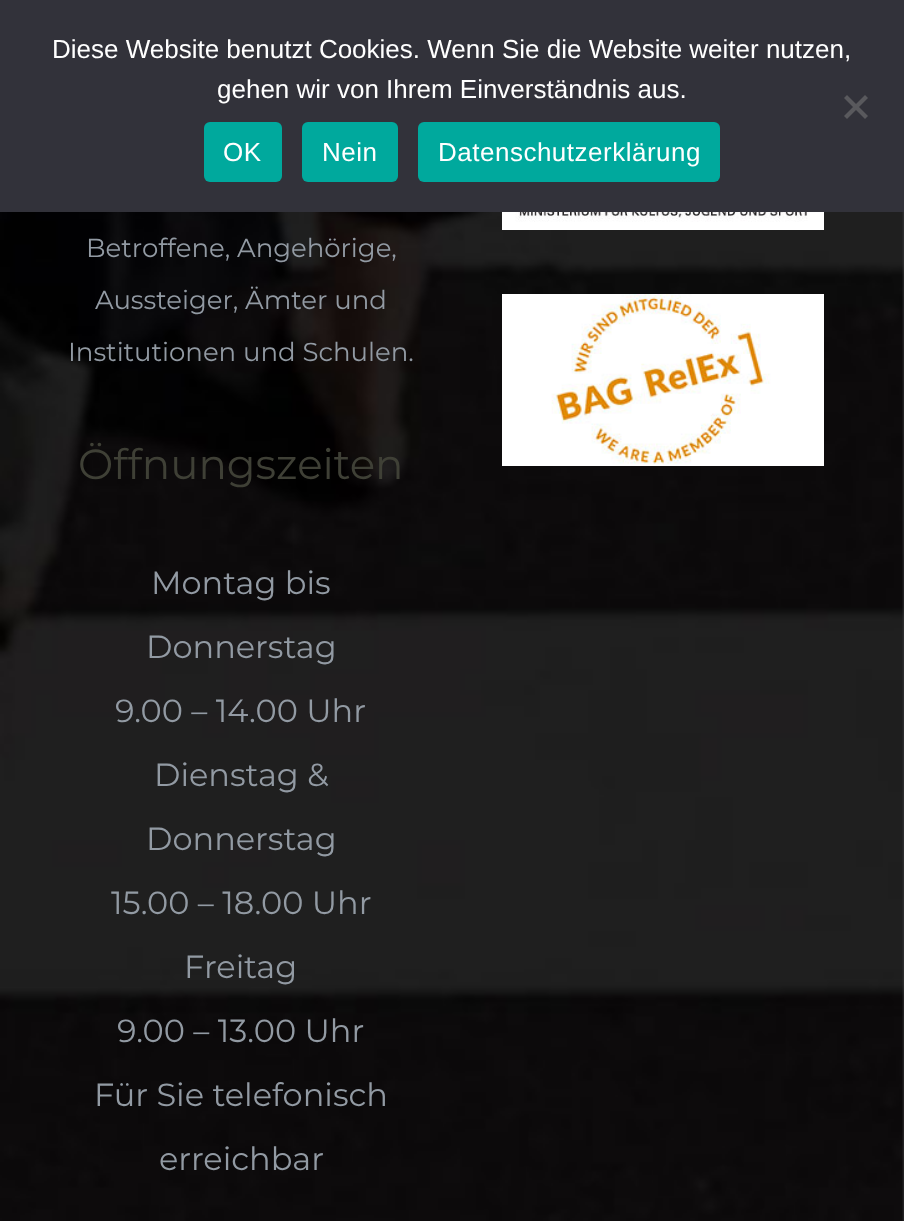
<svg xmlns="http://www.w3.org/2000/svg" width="904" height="1221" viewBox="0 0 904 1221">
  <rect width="100%" height="100%" fill="#404243"/>
  <rect x="0" y="0" width="904" height="212" fill="#32323a"/>
  <text x="52" y="58" font-family="Liberation Sans" font-size="26" fill="#ffffff">Diese Website benutzt Cookies. Wenn Sie die Website weiter nutzen,</text>
  <text x="217" y="98" font-family="Liberation Sans" font-size="26" fill="#ffffff">gehen wir von Ihrem Einverständnis aus.</text>
  <path d="M865 95L868 98L847 119L844 116Z" fill="#59595d"/>
  <path d="M844 98L847 95L868 116L865 119Z" fill="#59595d"/>
  <rect x="204" y="122" width="78" height="60" rx="6" fill="#00a99d"/>
  <text x="223" y="161" font-family="Liberation Sans" font-size="26" letter-spacing="0.5" fill="#ffffff">OK</text>
  <rect x="302" y="122" width="96" height="60" rx="6" fill="#00a99d"/>
  <text x="322" y="161" font-family="Liberation Sans" font-size="26" letter-spacing="0.5" fill="#ffffff">Nein</text>
  <rect x="418" y="122" width="302" height="60" rx="6" fill="#00a99d"/>
  <text x="438" y="161" font-family="Liberation Sans" font-size="26" letter-spacing="0.5" fill="#ffffff">Datenschutzerklärung</text>
  <image x="0" y="212" width="904" height="1009" href="img1.png"/>
  <text x="86" y="257" font-family="Montserrat" font-size="26" fill="#929aa3">Betroffene, Angehörige,</text>
  <text x="95" y="309" font-family="Montserrat" font-size="26" fill="#929aa3">Aussteiger, Ämter und</text>
  <text x="68" y="361" font-family="Montserrat" font-size="26" fill="#929aa3">Institutionen und Schulen.</text>
  <text x="78" y="479" font-family="Montserrat" font-size="42" fill="#3f4036">Öffnungszeiten</text>
  <text x="151" y="594" font-family="Montserrat" font-size="32" fill="#929aa3">Montag bis</text>
  <text x="146" y="658" font-family="Montserrat" font-size="32" fill="#929aa3">Donnerstag</text>
  <text x="115" y="722" font-family="Montserrat" font-size="32" fill="#929aa3">9.00 – 14.00 Uhr</text>
  <text x="154" y="786" font-family="Montserrat" font-size="32" fill="#929aa3">Dienstag &amp;</text>
  <text x="146" y="850" font-family="Montserrat" font-size="32" fill="#929aa3">Donnerstag</text>
  <text x="111" y="914" font-family="Montserrat" font-size="32" fill="#929aa3">15.00 – 18.00 Uhr</text>
  <text x="184" y="978" font-family="Montserrat" font-size="32" fill="#929aa3">Freitag</text>
  <text x="117" y="1042" font-family="Montserrat" font-size="32" fill="#929aa3">9.00 – 13.00 Uhr</text>
  <text x="94" y="1106" font-family="Montserrat" font-size="32" fill="#929aa3">Für Sie telefonisch</text>
  <text x="159" y="1170" font-family="Montserrat" font-size="32" fill="#929aa3">erreichbar</text>
  <image x="502" y="212" width="322" height="18" href="img2.png"/>
  <image x="502" y="294" width="322" height="172" href="img3.png"/>
</svg>
